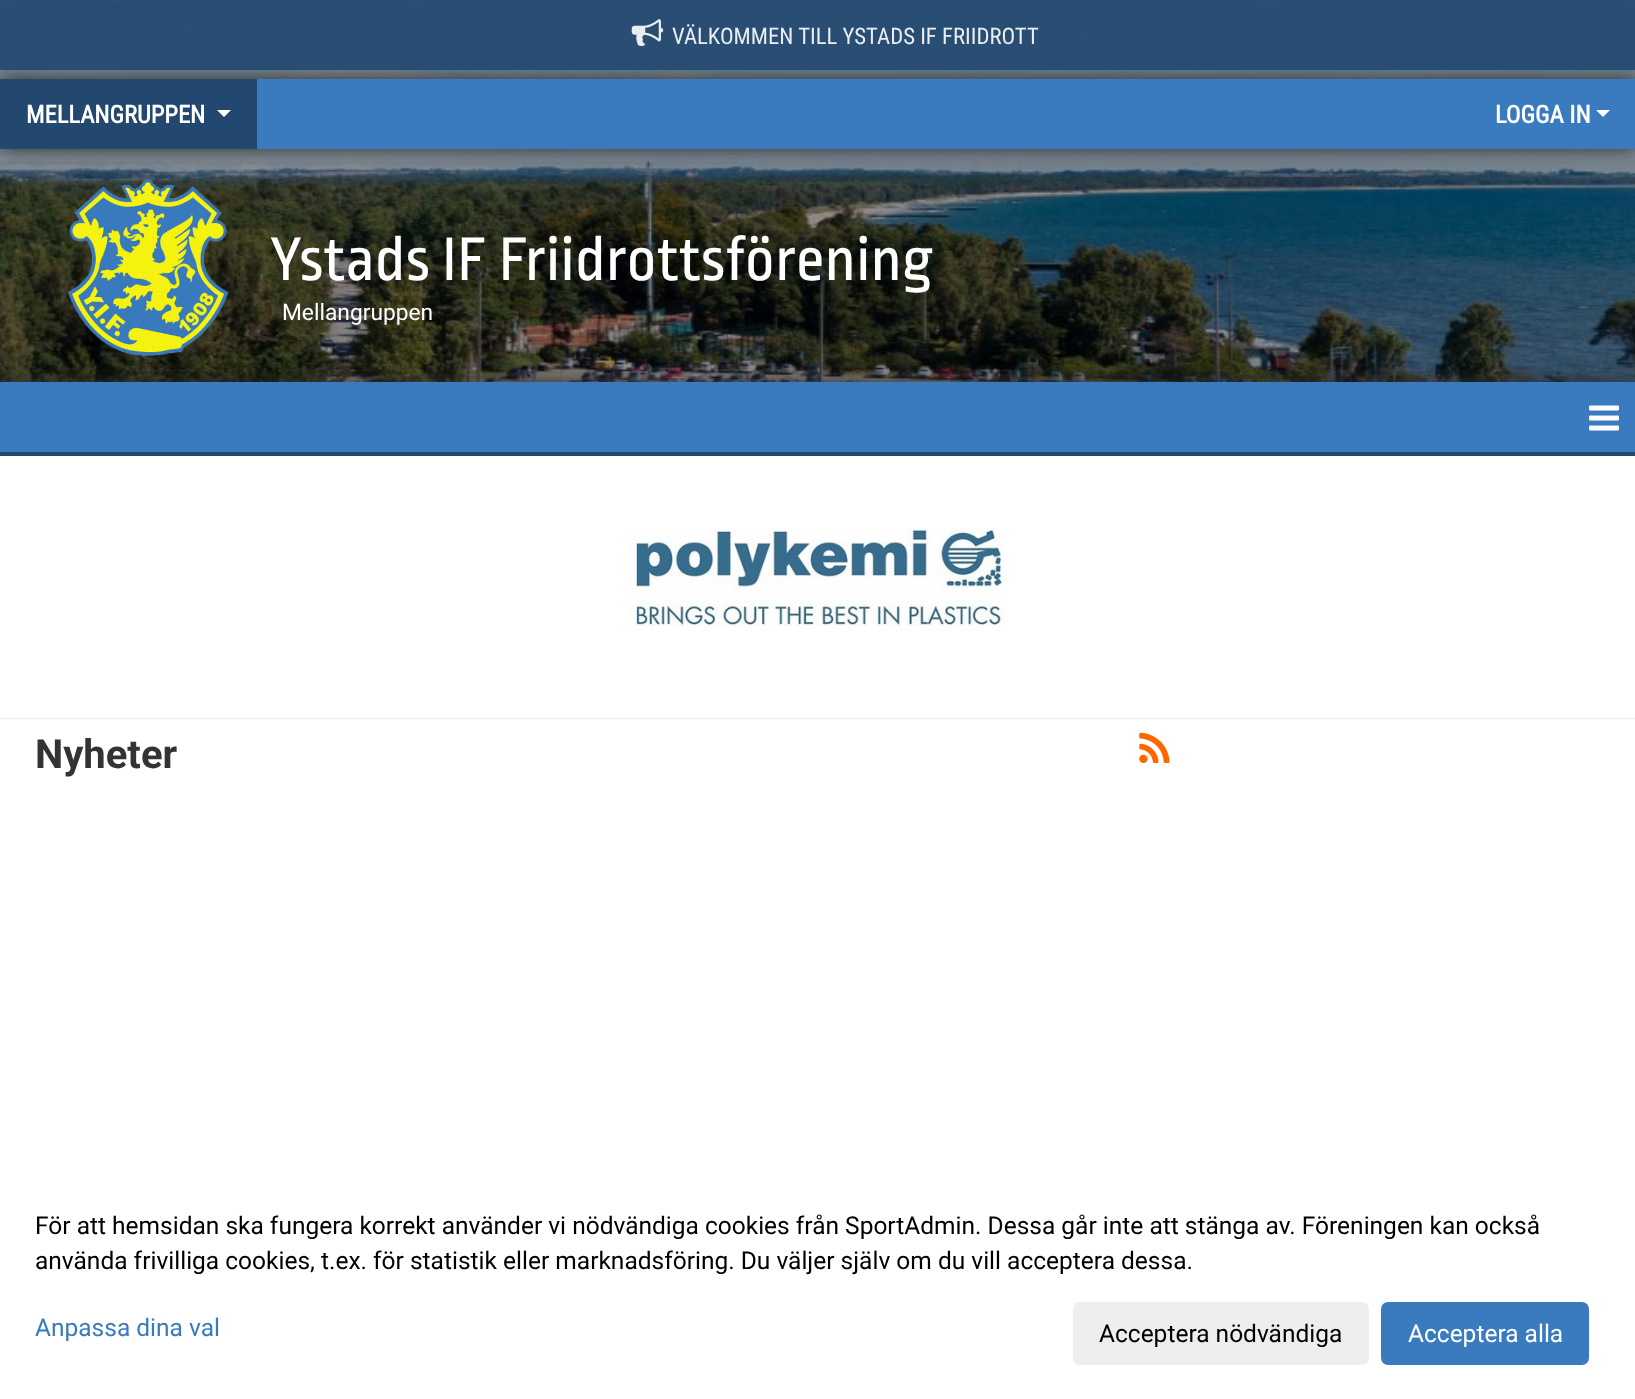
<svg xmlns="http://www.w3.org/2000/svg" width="1635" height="1399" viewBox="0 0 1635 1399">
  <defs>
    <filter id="blur1" x="-50%" y="-200%" width="200%" height="500%"><feGaussianBlur stdDeviation="9"/></filter>
  </defs>
  <rect width="100%" height="100%" fill="#ffffff"/>
  <image x="0" y="0" width="1635" height="382" href="img1.png"/>
  <rect x="0" y="79" width="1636" height="70" fill="#333333" filter="url(#blur1)"/>
  <rect x="0" y="0" width="1635" height="70" fill="#224870" fill-opacity="0.9"/>
  <image x="631" y="19" width="33" height="27" href="img2.png"/>
  <text x="672" y="44" font-family="Roboto Condensed" font-size="22.75" fill="#eaedf1">VÄLKOMMEN TILL YSTADS IF FRIIDROTT</text>
  <rect x="257" y="79" width="1378" height="70" fill="#3a7bbf"/>
  <rect x="0" y="79" width="257" height="70" fill="#224870"/>
  <text x="26" y="123" font-family="Roboto Condensed" font-size="24.5" font-weight="bold" fill="#ffffff">MELLANGRUPPEN</text>
  <path d="M217 110H231L224 117Z" fill="#ffffff"/>
  <text x="1495" y="123" font-family="Roboto Condensed" font-size="24.5" font-weight="bold" fill="#ffffff">LOGGA IN</text>
  <path d="M1596 110H1610L1603 117Z" fill="#ffffff"/>
  <rect x="0" y="382" width="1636" height="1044" fill="#333333" filter="url(#blur1)"/>
  <image x="67" y="179" width="162" height="177" href="img3.png"/>
  <text x="270" y="280" font-family="Ropa Sans" font-size="64.75" fill="#ffffff">Ystads IF Friidrottsförening</text>
  <text x="282" y="320" font-family="Roboto" font-size="22.75" fill="#ffffff">Mellangruppen</text>
  <rect x="0" y="456" width="1635" height="943" fill="#ffffff"/>
  <rect x="0" y="382" width="1635" height="70" fill="#3a7bbf"/>
  <rect x="0" y="452" width="1635" height="4" fill="#224870"/>
  <image x="1589" y="405" width="30" height="26" href="img4.png"/>
  <image x="628" y="528" width="378" height="99" href="img5.png"/>
  <rect x="0" y="718" width="1635" height="1" fill="#eeeeee"/>
  <text x="35" y="768" font-family="Roboto" font-size="40" font-weight="bold" fill="#333333">Nyheter</text>
  <image x="1139" y="732" width="31" height="31" href="img6.png"/>
  <text x="35" y="1234" font-family="Roboto" font-size="24.5" fill="#000000">För att hemsidan ska fungera korrekt använder vi nödvändiga cookies från SportAdmin. Dessa går inte att stänga av. Föreningen kan också</text>
  <text x="35" y="1269" font-family="Roboto" font-size="24.5" fill="#000000">använda frivilliga cookies, t.ex. för statistik eller marknadsföring. Du väljer själv om du vill acceptera dessa.</text>
  <text x="35" y="1336" font-family="Roboto" font-size="24.5" fill="#3a7bbf">Anpassa dina val</text>
  <rect x="1073" y="1302" width="296" height="63" rx="7" fill="#eeeeee"/>
  <text x="1099" y="1342" font-family="Roboto" font-size="24.5" fill="#000000">Acceptera nödvändiga</text>
  <rect x="1381" y="1302" width="208" height="63" rx="7" fill="#3a7bbf"/>
  <text x="1408" y="1342" font-family="Roboto" font-size="24.5" fill="#ffffff">Acceptera alla</text>
</svg>
